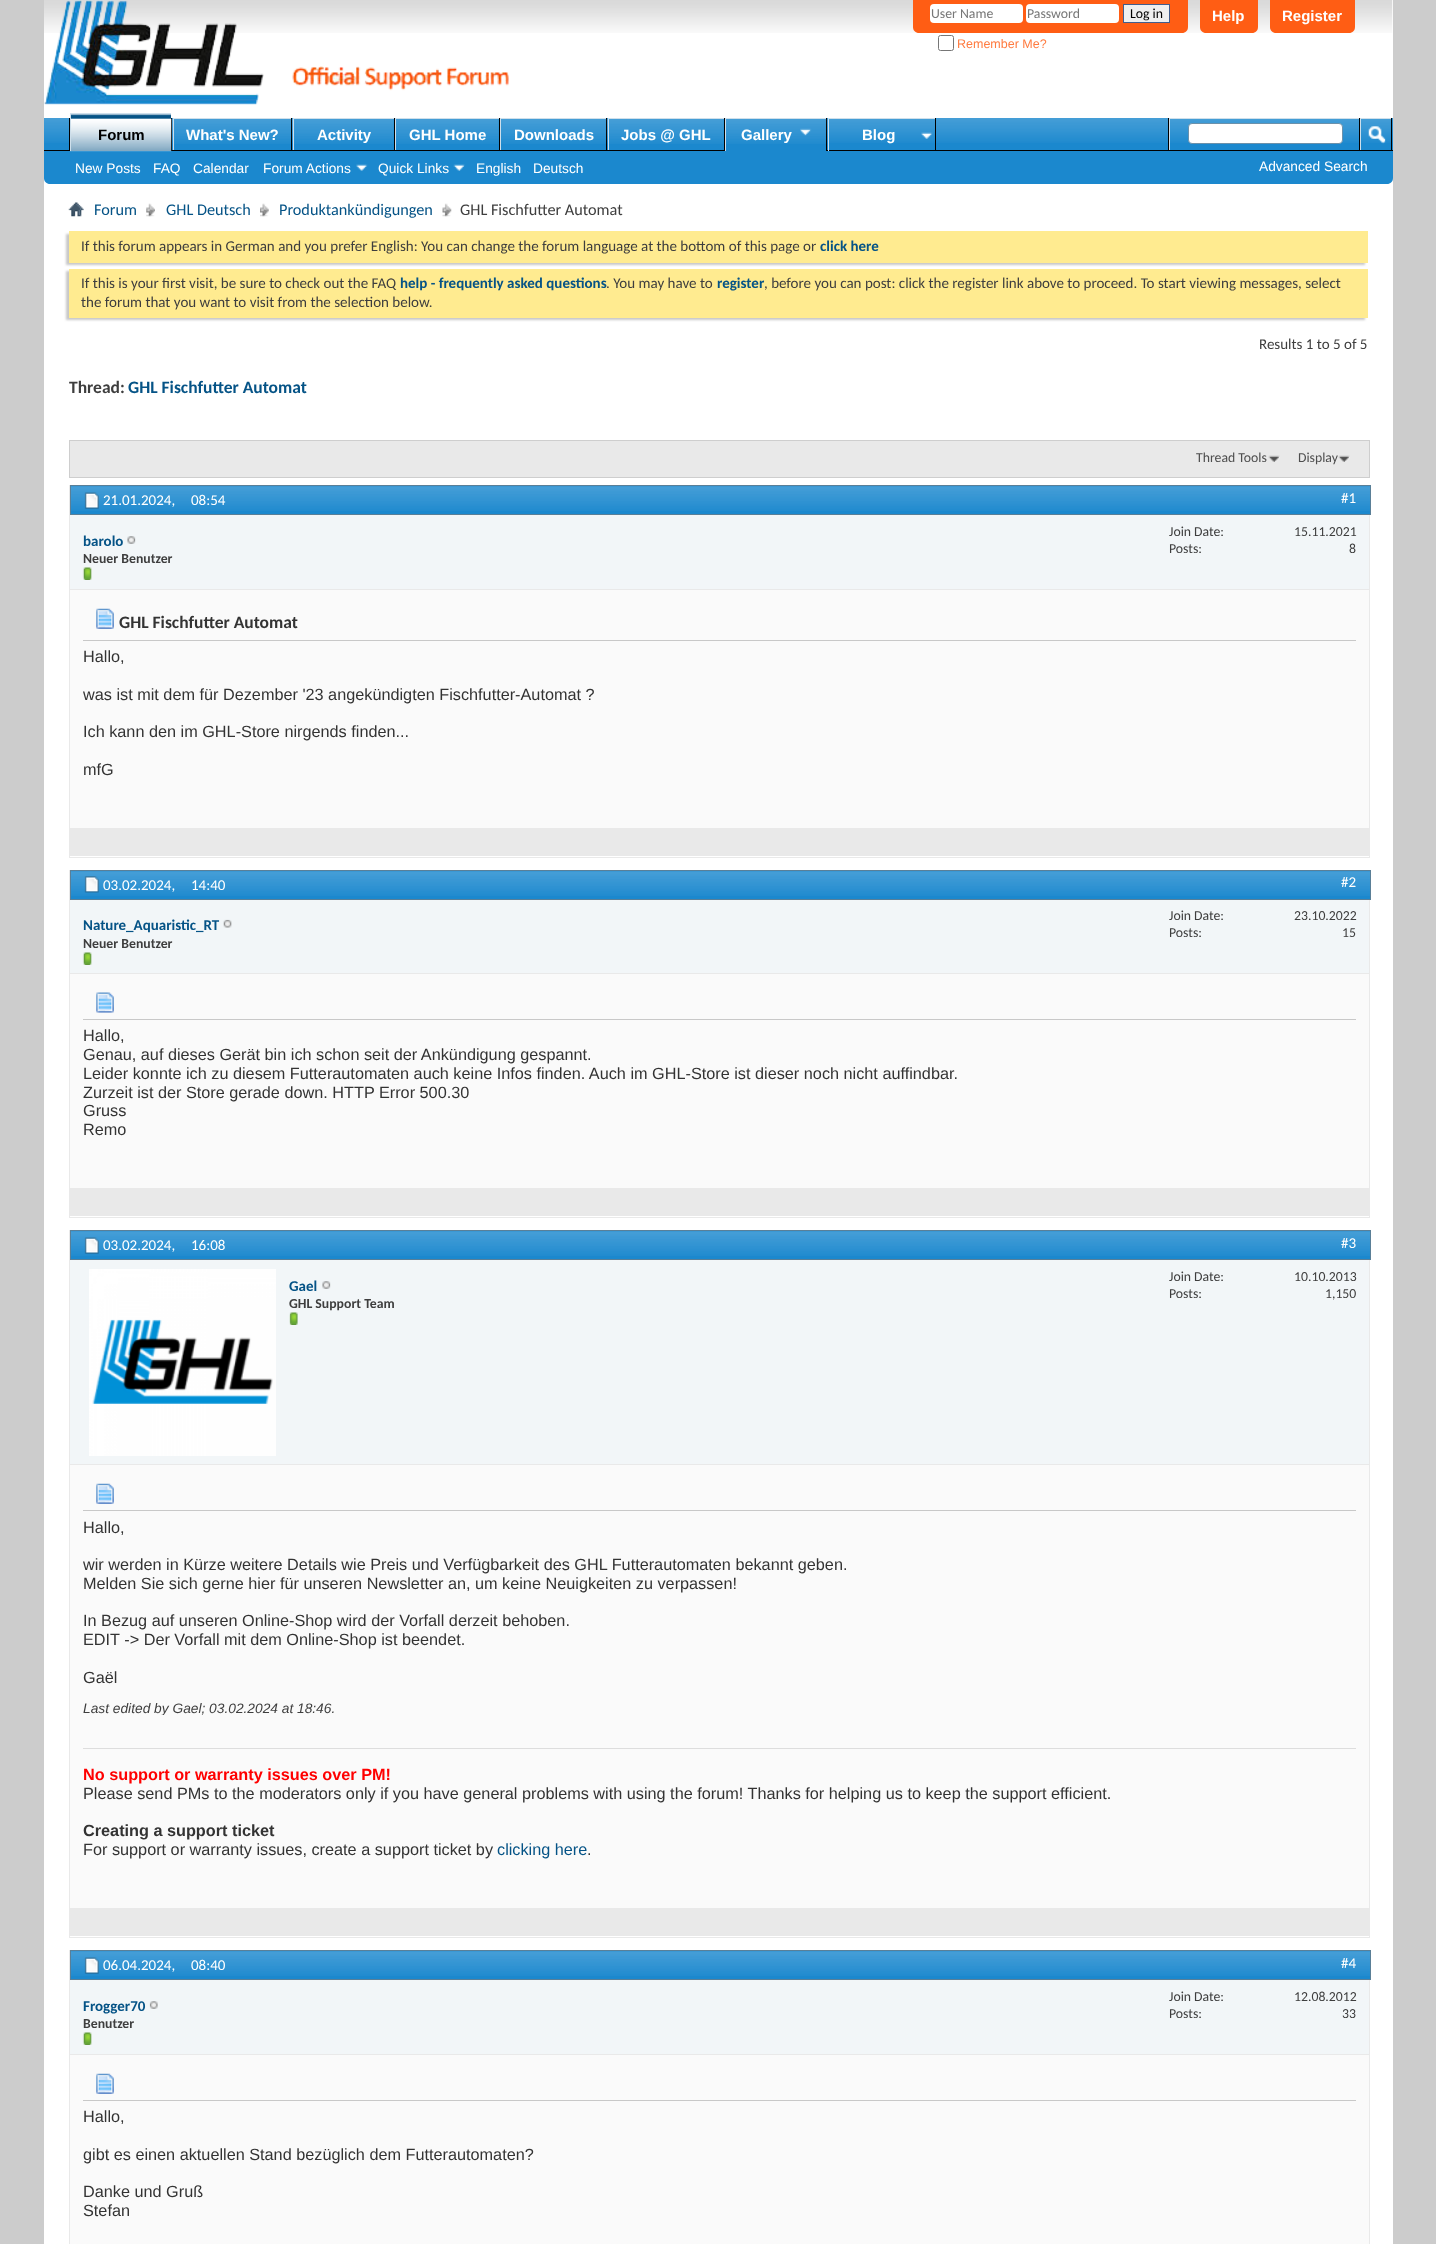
<svg xmlns="http://www.w3.org/2000/svg" width="1436" height="2244" viewBox="0 0 1436 2244">
  <defs>
    <filter id="blur1" x="-50%" y="-200%" width="200%" height="500%"><feGaussianBlur stdDeviation="1"/></filter>
    <clipPath id="clip1"><rect x="83" y="1686" width="1273" height="29"/></clipPath>
  </defs>
  <rect width="100%" height="100%" fill="#cccccc"/>
  <rect x="44" y="0" width="1349" height="2244" fill="#ffffff"/>
  <image x="44" y="0" width="1349" height="33" href="img1.png"/>
  <image x="44" y="0" width="465" height="105" href="img2.png"/>
  <path d="M913 0H1188V27C1188 30.5 1185.5 33 1182 33H919C915.5 33 913 30.5 913 27Z" fill="#ff5d14"/>
  <rect x="930" y="4" width="93" height="19" rx="4" fill="#ffffff"/>
  <text x="931" y="18" font-family="Carlito" font-size="13.75" fill="#777777">User Name</text>
  <rect x="1026" y="4" width="93" height="19" rx="4" fill="#ffffff"/>
  <text x="1027" y="18" font-family="Carlito" font-size="13.75" fill="#777777">Password</text>
  <rect x="1123.5" y="4.5" width="46" height="18" fill="#efefef" stroke="#415d8d"/>
  <text x="1130" y="18" font-family="Carlito" font-size="13.75" fill="#000000">Log in</text>
  <rect x="938.5" y="35.5" width="15" height="15" rx="2" fill="none" stroke="#767676"/>
  <text x="957" y="48" font-family="Liberation Sans" font-size="12.5" fill="#ff7c41">Remember Me?</text>
  <path d="M1200 0H1258V27C1258 30.5 1255.5 33 1252 33H1206C1202.5 33 1200 30.5 1200 27Z" fill="#ff5d14"/>
  <text x="1212" y="21" font-family="Liberation Sans" font-size="15" font-weight="bold" fill="#ffffff">Help</text>
  <path d="M1270 0H1355V27C1355 30.5 1352.5 33 1349 33H1276C1272.5 33 1270 30.5 1270 27Z" fill="#ff5d14"/>
  <text x="1282" y="21" font-family="Liberation Sans" font-size="15" font-weight="bold" fill="#ffffff">Register</text>
  <path d="M44 118H1393V178C1393 181.5 1390.5 184 1387 184H50C46.5 184 44 181.5 44 178Z" fill="#1b88ce"/>
  <image x="44" y="118" width="1349" height="25" href="img3.png"/>
  <rect x="171" y="118" width="1" height="32" fill="#000000"/>
  <rect x="69" y="118" width="1" height="32" fill="#000000"/>
  <rect x="291" y="118" width="1" height="33" fill="#000000"/>
  <rect x="174" y="119" width="117" height="24" fill="#1b88ce"/>
  <image x="172" y="118" width="120" height="26" href="img5.png"/>
  <rect x="173" y="118" width="118" height="1" fill="#cedfeb"/>
  <rect x="173" y="118" width="1" height="33" fill="#cedfeb"/>
  <rect x="394" y="118" width="1" height="33" fill="#000000"/>
  <rect x="294" y="119" width="100" height="24" fill="#1b88ce"/>
  <image x="292" y="118" width="102" height="26" href="img6.png"/>
  <rect x="293" y="118" width="101" height="1" fill="#cedfeb"/>
  <rect x="293" y="118" width="1" height="33" fill="#cedfeb"/>
  <rect x="499" y="118" width="1" height="33" fill="#000000"/>
  <rect x="395" y="118" width="104" height="1" fill="#cedfeb"/>
  <rect x="395" y="118" width="1" height="33" fill="#cedfeb"/>
  <rect x="606" y="118" width="1" height="33" fill="#000000"/>
  <rect x="500" y="118" width="106" height="1" fill="#cedfeb"/>
  <rect x="500" y="118" width="1" height="33" fill="#cedfeb"/>
  <rect x="724" y="118" width="1" height="33" fill="#000000"/>
  <rect x="609" y="119" width="115" height="24" fill="#1b88ce"/>
  <image x="607" y="118" width="117" height="26" href="img9.png"/>
  <rect x="608" y="118" width="116" height="1" fill="#cedfeb"/>
  <rect x="608" y="118" width="1" height="33" fill="#cedfeb"/>
  <rect x="44" y="150" width="1349" height="1" fill="#000000"/>
  <rect x="71" y="114" width="100" height="37" fill="#055386"/>
  <image x="70" y="113" width="102" height="39" href="img4.png"/>
  <rect x="70" y="113" width="101" height="1" fill="#cedfeb"/>
  <rect x="70" y="113" width="1" height="38" fill="#cedfeb"/>
  <text x="98" y="140" font-family="Liberation Sans" font-size="15" font-weight="bold" fill="#000000">Forum</text>
  <text x="186" y="140" font-family="Liberation Sans" font-size="15" font-weight="bold" fill="#ffffff">What's New?</text>
  <text x="317" y="140" font-family="Liberation Sans" font-size="15" font-weight="bold" fill="#ffffff">Activity</text>
  <rect x="396" y="119" width="103" height="24" fill="#1b88ce"/>
  <image x="396" y="119" width="103" height="25" href="img7.png"/>
  <text x="409" y="140" font-family="Liberation Sans" font-size="15" font-weight="bold" fill="#ffffff">GHL Home</text>
  <rect x="501" y="119" width="105" height="24" fill="#1b88ce"/>
  <image x="501" y="119" width="106" height="25" href="img8.png"/>
  <text x="514" y="140" font-family="Liberation Sans" font-size="15" font-weight="bold" fill="#ffffff">Downloads</text>
  <text x="621" y="140" font-family="Liberation Sans" font-size="15" font-weight="bold" fill="#ffffff">Jobs @ GHL</text>
  <rect x="826" y="118" width="1" height="33" fill="#000000"/>
  <rect x="726" y="119" width="100" height="32" fill="#1b88ce"/>
  <image x="726" y="119" width="101" height="25" href="img10.png"/>
  <rect x="725" y="118" width="101" height="1" fill="#cedfeb"/>
  <rect x="725" y="118" width="1" height="33" fill="#cedfeb"/>
  <text x="741" y="140" font-family="Liberation Sans" font-size="15" font-weight="bold" fill="#ffffff">Gallery</text>
  <image x="800" y="128" width="12" height="8" href="img11.png"/>
  <rect x="935" y="118" width="1" height="33" fill="#000000"/>
  <image x="921" y="132" width="12" height="7" href="img12.png"/>
  <rect x="828" y="118" width="107" height="1" fill="#cedfeb"/>
  <rect x="828" y="118" width="1" height="33" fill="#cedfeb"/>
  <text x="862" y="140" font-family="Liberation Sans" font-size="15" font-weight="bold" fill="#ffffff">Blog</text>
  <text x="75" y="173" font-family="Liberation Sans" font-size="13.75" fill="#ffffff">New Posts</text>
  <text x="153" y="173" font-family="Liberation Sans" font-size="13.75" fill="#ffffff">FAQ</text>
  <text x="193" y="173" font-family="Liberation Sans" font-size="13.75" fill="#ffffff">Calendar</text>
  <text x="263" y="173" font-family="Liberation Sans" font-size="13.75" fill="#ffffff">Forum Actions</text>
  <image x="356" y="164" width="12" height="7" href="img13.png"/>
  <text x="378" y="173" font-family="Liberation Sans" font-size="13.75" fill="#ffffff">Quick Links</text>
  <image x="453" y="164" width="12" height="7" href="img14.png"/>
  <text x="476" y="173" font-family="Liberation Sans" font-size="13.75" fill="#ffffff">English</text>
  <text x="533" y="173" font-family="Liberation Sans" font-size="13.75" fill="#ffffff">Deutsch</text>
  <rect x="1168" y="118" width="1" height="32" fill="#000000"/>
  <rect x="1169" y="118" width="190" height="1" fill="#cedfeb"/>
  <rect x="1169" y="118" width="1" height="32" fill="#cedfeb"/>
  <rect x="1188.5" y="123.5" width="154" height="20" rx="3.5" fill="#ffffff" stroke="#6b91ab"/>
  <rect x="1391" y="118" width="1" height="32" fill="#000000"/>
  <rect x="1359" y="118" width="1" height="32" fill="#000000"/>
  <rect x="1360" y="118" width="31" height="1" fill="#cedfeb"/>
  <rect x="1360" y="118" width="1" height="32" fill="#cedfeb"/>
  <image x="1368" y="126" width="18" height="18" href="img15.png"/>
  <text x="1259" y="171" font-family="Liberation Sans" font-size="13.75" fill="#ffffff">Advanced Search</text>
  <image x="68" y="202" width="16" height="15" href="img16.png"/>
  <image x="146" y="203" width="9" height="14" href="img17.png"/>
  <text x="94" y="215" font-family="Carlito" font-size="16.25" fill="#055386">Forum</text>
  <image x="260" y="203" width="9" height="14" href="img18.png"/>
  <text x="166" y="215" font-family="Carlito" font-size="16.25" fill="#055386">GHL Deutsch</text>
  <image x="442" y="203" width="10" height="14" href="img19.png"/>
  <text x="279" y="215" font-family="Carlito" font-size="16.25" fill="#055386">Produktankündigungen</text>
  <text x="460" y="215" font-family="Carlito" font-size="16.25" fill="#3e3e3e">GHL Fischfutter Automat</text>
  <rect x="66" y="234" width="1299" height="31" fill="#c8c8c8" filter="url(#blur1)"/>
  <rect x="69" y="231" width="1299" height="32" fill="#ffeb90"/>
  <text x="81" y="251" font-family="Carlito" font-size="15" fill="#3e3e3e">If this forum appears in German and you prefer English: You can change the forum language at the bottom of this page or</text>
  <text x="820" y="251" font-family="Carlito" font-size="15" font-weight="bold" fill="#055386">click here</text>
  <rect x="66" y="271" width="1299" height="49" fill="#c8c8c8" filter="url(#blur1)"/>
  <rect x="69" y="269" width="1299" height="49" fill="#ffeb90"/>
  <text x="81" y="288" font-family="Carlito" font-size="15" fill="#3e3e3e">If this is your first visit, be sure to check out the FAQ</text>
  <text x="400" y="288" font-family="Carlito" font-size="15" font-weight="bold" fill="#055386">help - frequently asked questions</text>
  <text x="606" y="288" font-family="Carlito" font-size="15" fill="#3e3e3e">. You may have to</text>
  <text x="717" y="288" font-family="Carlito" font-size="15" font-weight="bold" fill="#055386">register</text>
  <text x="764" y="288" font-family="Carlito" font-size="15" fill="#3e3e3e">, before you can post: click the register link above to proceed. To start viewing messages, select</text>
  <text x="81" y="307" font-family="Carlito" font-size="15" fill="#3e3e3e">the forum that you want to visit from the selection below.</text>
  <text x="1259" y="349" font-family="Carlito" font-size="15" fill="#3e3e3e">Results 1 to 5 of 5</text>
  <text x="69" y="393" font-family="Carlito" font-size="17.5" font-weight="bold" fill="#3e3e3e">Thread:</text>
  <text x="128" y="393" font-family="Carlito" font-size="17.5" font-weight="bold" fill="#055386">GHL Fischfutter Automat</text>
  <rect x="69.5" y="440.5" width="1300" height="37" fill="#e9e9e9" stroke="#cecece"/>
  <image x="1268" y="455" width="12" height="7" href="img20.png"/>
  <text x="1196" y="462" font-family="Carlito" font-size="13.75" fill="#4e4e4e">Thread Tools</text>
  <image x="1338" y="455" width="12" height="7" href="img20.png"/>
  <text x="1298" y="462" font-family="Carlito" font-size="13.75" fill="#4e4e4e">Display</text>
  <rect x="69.5" y="485.5" width="1300" height="372" fill="none" stroke="#e9e9e9"/>
  <rect x="71" y="486" width="1299" height="28" fill="#1b88ce"/>
  <image x="71" y="486" width="1299" height="25" href="img21.png"/>
  <rect x="70.5" y="485.5" width="1300" height="29" fill="none" stroke="#5a7f97"/>
  <image x="84" y="492" width="15" height="17" href="img22.png"/>
  <text x="103" y="505" font-family="Carlito" font-size="15" fill="#ffffff">21.01.2024,</text>
  <text x="191" y="505" font-family="Carlito" font-size="15" fill="#ffffff">08:54</text>
  <text x="1341" y="503" font-family="Carlito" font-size="15" fill="#ffffff">#1</text>
  <rect x="70" y="515" width="1299" height="74" fill="#f2f6f8"/>
  <rect x="70" y="589" width="1299" height="1" fill="#e9e9e9"/>
  <text x="83" y="546" font-family="Carlito" font-size="15" font-weight="bold" fill="#055386">barolo</text>
  <image x="127" y="536" width="9" height="8" href="img23.png"/>
  <text x="83" y="563" font-family="Carlito" font-size="13.75" font-weight="bold" fill="#3e3e3e">Neuer Benutzer</text>
  <image x="82" y="567" width="10" height="13" href="img24.png"/>
  <text x="1169" y="536" font-family="Carlito" font-size="13.75" fill="#3e3e3e">Join Date:</text>
  <text x="1294" y="536" font-family="Carlito" font-size="13.75" fill="#3e3e3e">15.11.2021</text>
  <text x="1169" y="553" font-family="Carlito" font-size="13.75" fill="#3e3e3e">Posts:</text>
  <text x="1349" y="553" font-family="Carlito" font-size="13.75" fill="#3e3e3e">8</text>
  <rect x="70" y="590" width="1299" height="238" fill="#fafafa"/>
  <rect x="83" y="640" width="1273" height="1" fill="#c8c8c8"/>
  <image x="96" y="608" width="18" height="21" href="img25.png"/>
  <text x="119" y="628" font-family="Carlito" font-size="17.5" font-weight="bold" fill="#333333">GHL Fischfutter Automat</text>
  <text x="83" y="662" font-family="Liberation Sans" font-size="16.25" fill="#333333">Hallo,</text>
  <text x="83" y="700" font-family="Liberation Sans" font-size="16.25" fill="#333333">was ist mit dem für Dezember '23 angekündigten Fischfutter-Automat ?</text>
  <text x="83" y="737" font-family="Liberation Sans" font-size="16.25" fill="#333333">Ich kann den im GHL-Store nirgends finden...</text>
  <text x="83" y="775" font-family="Liberation Sans" font-size="16.25" fill="#333333">mfG</text>
  <rect x="70" y="828" width="1299" height="28" fill="#e9e9e9"/>
  <rect x="69.5" y="870.5" width="1300" height="347" fill="none" stroke="#e9e9e9"/>
  <rect x="71" y="871" width="1299" height="28" fill="#1b88ce"/>
  <image x="71" y="871" width="1299" height="25" href="img21.png"/>
  <rect x="70.5" y="870.5" width="1300" height="29" fill="none" stroke="#5a7f97"/>
  <image x="84" y="876" width="15" height="17" href="img26.png"/>
  <text x="103" y="890" font-family="Carlito" font-size="15" fill="#ffffff">03.02.2024,</text>
  <text x="191" y="890" font-family="Carlito" font-size="15" fill="#ffffff">14:40</text>
  <text x="1341" y="887" font-family="Carlito" font-size="15" fill="#ffffff">#2</text>
  <rect x="70" y="900" width="1299" height="73" fill="#f2f6f8"/>
  <rect x="70" y="973" width="1299" height="1" fill="#e9e9e9"/>
  <text x="83" y="930" font-family="Carlito" font-size="15" font-weight="bold" fill="#055386">Nature_Aquaristic_RT</text>
  <image x="223" y="919" width="9" height="9" href="img27.png"/>
  <text x="83" y="948" font-family="Carlito" font-size="13.75" font-weight="bold" fill="#3e3e3e">Neuer Benutzer</text>
  <image x="82" y="952" width="10" height="13" href="img24.png"/>
  <text x="1169" y="920" font-family="Carlito" font-size="13.75" fill="#3e3e3e">Join Date:</text>
  <text x="1294" y="920" font-family="Carlito" font-size="13.75" fill="#3e3e3e">23.10.2022</text>
  <text x="1169" y="937" font-family="Carlito" font-size="13.75" fill="#3e3e3e">Posts:</text>
  <text x="1342" y="937" font-family="Carlito" font-size="13.75" fill="#3e3e3e">15</text>
  <rect x="70" y="974" width="1299" height="214" fill="#fafafa"/>
  <rect x="83" y="1019" width="1273" height="1" fill="#c8c8c8"/>
  <image x="96" y="992" width="18" height="21" href="img28.png"/>
  <text x="83" y="1041" font-family="Liberation Sans" font-size="16.25" fill="#333333">Hallo,</text>
  <text x="83" y="1060" font-family="Liberation Sans" font-size="16.25" fill="#333333">Genau, auf dieses Gerät bin ich schon seit der Ankündigung gespannt.</text>
  <text x="83" y="1079" font-family="Liberation Sans" font-size="16.25" fill="#333333">Leider konnte ich zu diesem Futterautomaten auch keine Infos finden. Auch im GHL-Store ist dieser noch nicht auffindbar.</text>
  <text x="83" y="1098" font-family="Liberation Sans" font-size="16.25" fill="#333333">Zurzeit ist der Store gerade down. HTTP Error 500.30</text>
  <text x="83" y="1116" font-family="Liberation Sans" font-size="16.25" fill="#333333">Gruss</text>
  <text x="83" y="1135" font-family="Liberation Sans" font-size="16.25" fill="#333333">Remo</text>
  <rect x="70" y="1188" width="1299" height="28" fill="#e9e9e9"/>
  <rect x="69.5" y="1230.5" width="1300" height="707" fill="none" stroke="#e9e9e9"/>
  <rect x="71" y="1231" width="1299" height="28" fill="#1b88ce"/>
  <image x="71" y="1231" width="1299" height="25" href="img21.png"/>
  <rect x="70.5" y="1230.5" width="1300" height="29" fill="none" stroke="#5a7f97"/>
  <image x="84" y="1237" width="15" height="17" href="img22.png"/>
  <text x="103" y="1250" font-family="Carlito" font-size="15" fill="#ffffff">03.02.2024,</text>
  <text x="191" y="1250" font-family="Carlito" font-size="15" fill="#ffffff">16:08</text>
  <text x="1341" y="1248" font-family="Carlito" font-size="15" fill="#ffffff">#3</text>
  <rect x="70" y="1260" width="1299" height="204" fill="#f2f6f8"/>
  <rect x="70" y="1464" width="1299" height="1" fill="#e9e9e9"/>
  <image x="89" y="1269" width="187" height="187" href="img29.png"/>
  <text x="289" y="1291" font-family="Carlito" font-size="15" font-weight="bold" fill="#055386">Gael</text>
  <image x="322" y="1281" width="9" height="8" href="img23.png"/>
  <text x="289" y="1308" font-family="Carlito" font-size="13.75" font-weight="bold" fill="#3e3e3e">GHL Support Team</text>
  <image x="289" y="1312" width="9" height="13" href="img30.png"/>
  <text x="1169" y="1281" font-family="Carlito" font-size="13.75" fill="#3e3e3e">Join Date:</text>
  <text x="1294" y="1281" font-family="Carlito" font-size="13.75" fill="#3e3e3e">10.10.2013</text>
  <text x="1169" y="1298" font-family="Carlito" font-size="13.75" fill="#3e3e3e">Posts:</text>
  <text x="1325" y="1298" font-family="Carlito" font-size="13.75" fill="#3e3e3e">1,150</text>
  <rect x="70" y="1465" width="1299" height="443" fill="#fafafa"/>
  <rect x="83" y="1510" width="1273" height="1" fill="#c8c8c8"/>
  <image x="96" y="1483" width="18" height="21" href="img25.png"/>
  <text x="83" y="1533" font-family="Liberation Sans" font-size="16.25" fill="#333333">Hallo,</text>
  <text x="83" y="1570" font-family="Liberation Sans" font-size="16.25" fill="#333333">wir werden in Kürze weitere Details wie Preis und Verfügbarkeit des GHL Futterautomaten bekannt geben.</text>
  <text x="83" y="1589" font-family="Liberation Sans" font-size="16.25" fill="#333333">Melden Sie sich gerne hier für unseren Newsletter an, um keine Neuigkeiten zu verpassen!</text>
  <text x="83" y="1626" font-family="Liberation Sans" font-size="16.25" fill="#333333">In Bezug auf unseren Online-Shop wird der Vorfall derzeit behoben.</text>
  <text x="83" y="1645" font-family="Liberation Sans" font-size="16.25" fill="#333333">EDIT -&gt; Der Vorfall mit dem Online-Shop ist beendet.</text>
  <text x="83" y="1683" font-family="Liberation Sans" font-size="16.25" fill="#333333">Gaël</text>
  <g clip-path="url(#clip1)">
    <text x="83" y="1713" font-family="Liberation Sans" font-size="13.75" font-style="italic" fill="#3e3e3e">Last edited by Gael; 03.02.2024 at</text>
  </g>
  <text x="297" y="1713" font-family="Liberation Sans" font-size="13.75" font-style="italic" fill="#3e3e3e">18:46.</text>
  <rect x="83" y="1748" width="1273" height="1" fill="#dddddd"/>
  <text x="83" y="1780" font-family="Liberation Sans" font-size="16.25" font-weight="bold" fill="#ff0000">No support or warranty issues over PM!</text>
  <text x="83" y="1799" font-family="Liberation Sans" font-size="16.25" fill="#333333">Please send PMs to the moderators only if you have general problems with using the forum! Thanks for helping us to keep the support efficient.</text>
  <text x="83" y="1836" font-family="Liberation Sans" font-size="16.25" font-weight="bold" fill="#333333">Creating a support ticket</text>
  <text x="83" y="1855" font-family="Liberation Sans" font-size="16.25" fill="#333333">For support or warranty issues, create a support ticket by</text>
  <text x="497" y="1855" font-family="Liberation Sans" font-size="16.25" fill="#055386">clicking here</text>
  <text x="587" y="1855" font-family="Liberation Sans" font-size="16.25" fill="#333333">.</text>
  <rect x="70" y="1908" width="1299" height="28" fill="#e9e9e9"/>
  <rect x="69.5" y="1950.5" width="1300" height="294" fill="none" stroke="#e9e9e9"/>
  <rect x="71" y="1951" width="1299" height="28" fill="#1b88ce"/>
  <image x="71" y="1951" width="1299" height="25" href="img21.png"/>
  <rect x="70.5" y="1950.5" width="1300" height="29" fill="none" stroke="#5a7f97"/>
  <image x="84" y="1957" width="15" height="17" href="img22.png"/>
  <text x="103" y="1970" font-family="Carlito" font-size="15" fill="#ffffff">06.04.2024,</text>
  <text x="191" y="1970" font-family="Carlito" font-size="15" fill="#ffffff">08:40</text>
  <text x="1341" y="1968" font-family="Carlito" font-size="15" fill="#ffffff">#4</text>
  <rect x="70" y="1980" width="1299" height="74" fill="#f2f6f8"/>
  <rect x="70" y="2054" width="1299" height="1" fill="#e9e9e9"/>
  <text x="83" y="2011" font-family="Carlito" font-size="15" font-weight="bold" fill="#055386">Frogger70</text>
  <image x="149" y="2001" width="9" height="8" href="img31.png"/>
  <text x="83" y="2028" font-family="Carlito" font-size="13.75" font-weight="bold" fill="#3e3e3e">Benutzer</text>
  <image x="82" y="2032" width="10" height="13" href="img24.png"/>
  <text x="1169" y="2001" font-family="Carlito" font-size="13.75" fill="#3e3e3e">Join Date:</text>
  <text x="1294" y="2001" font-family="Carlito" font-size="13.75" fill="#3e3e3e">12.08.2012</text>
  <text x="1169" y="2018" font-family="Carlito" font-size="13.75" fill="#3e3e3e">Posts:</text>
  <text x="1342" y="2018" font-family="Carlito" font-size="13.75" fill="#3e3e3e">33</text>
  <rect x="70" y="2055" width="1299" height="189" fill="#fafafa"/>
  <rect x="83" y="2100" width="1273" height="1" fill="#c8c8c8"/>
  <image x="96" y="2073" width="18" height="21" href="img25.png"/>
  <text x="83" y="2122" font-family="Liberation Sans" font-size="16.25" fill="#333333">Hallo,</text>
  <text x="83" y="2160" font-family="Liberation Sans" font-size="16.25" fill="#333333">gibt es einen aktuellen Stand bezüglich dem Futterautomaten?</text>
  <text x="83" y="2197" font-family="Liberation Sans" font-size="16.25" fill="#333333">Danke und Gruß</text>
  <text x="83" y="2216" font-family="Liberation Sans" font-size="16.25" fill="#333333">Stefan</text>
</svg>
